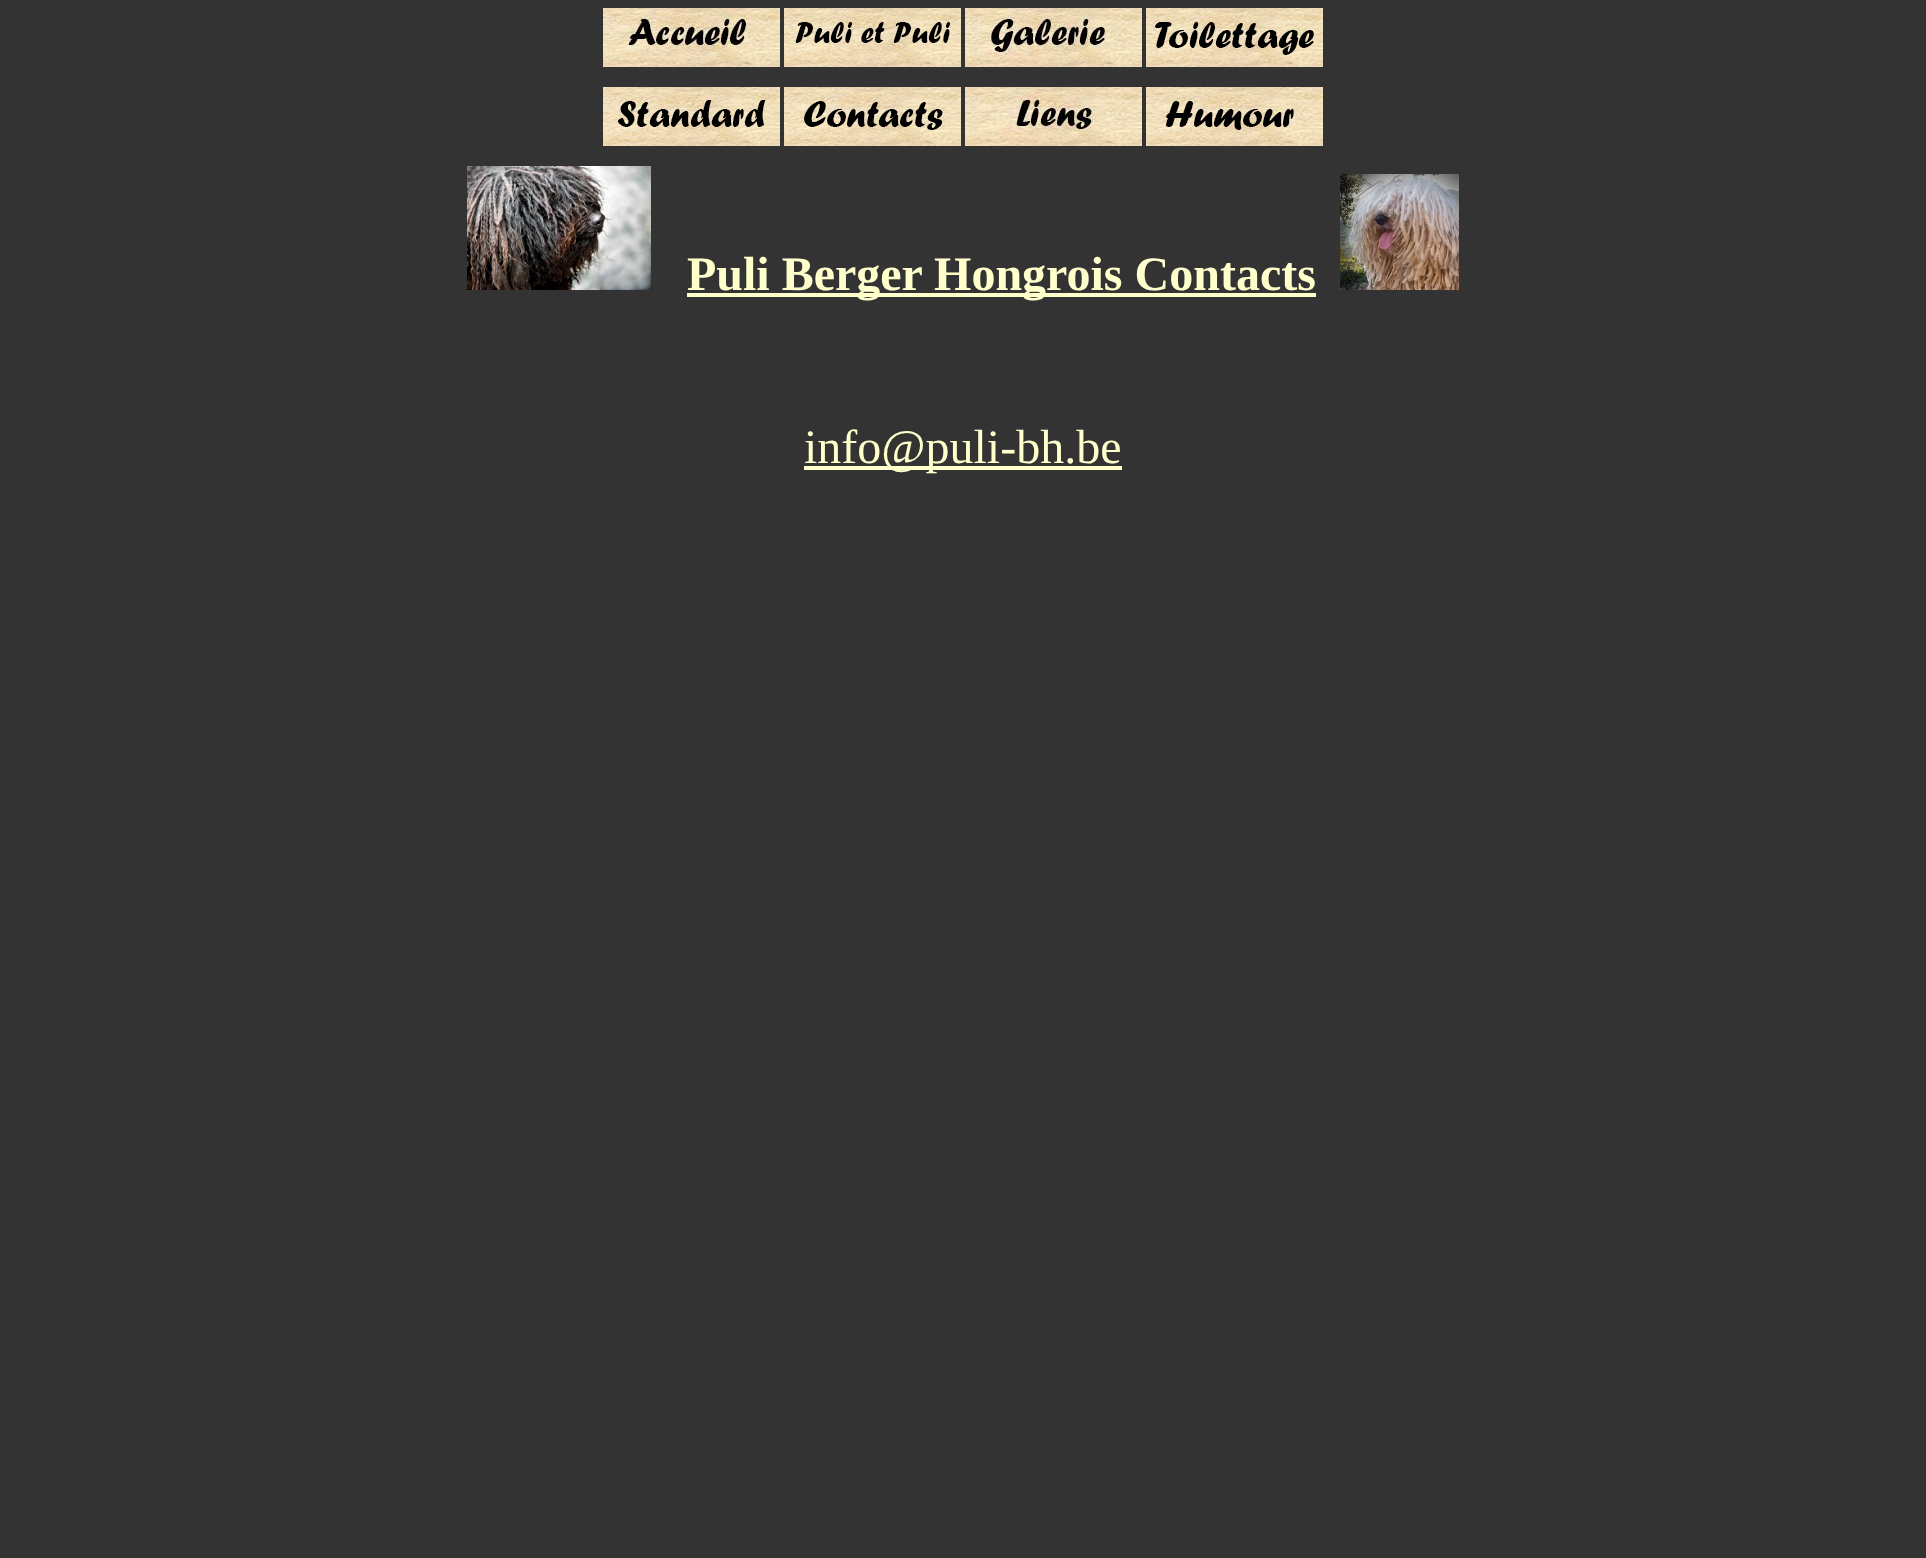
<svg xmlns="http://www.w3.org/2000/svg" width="1926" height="1558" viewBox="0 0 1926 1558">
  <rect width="100%" height="100%" fill="#333333"/>
  <image x="603" y="8" width="177" height="59" href="img1.png"/>
  <image x="784" y="8" width="177" height="59" href="img2.png"/>
  <image x="965" y="8" width="177" height="59" href="img3.png"/>
  <image x="1146" y="8" width="177" height="59" href="img4.png"/>
  <image x="603" y="87" width="177" height="59" href="img5.png"/>
  <image x="784" y="87" width="177" height="59" href="img6.png"/>
  <image x="965" y="87" width="177" height="59" href="img7.png"/>
  <image x="1146" y="87" width="177" height="59" href="img8.png"/>
  <image x="467" y="166" width="184" height="124" href="img9.png"/>
  <rect x="687" y="293" width="629" height="4" fill="#ffffcc"/>
  <text x="687" y="290" font-family="Liberation Serif" font-size="48" font-weight="bold" fill="#ffffcc">Puli Berger Hongrois Contacts</text>
  <image x="1340" y="174" width="119" height="116" href="img10.png"/>
  <rect x="804" y="466" width="318" height="4" fill="#ffffcc"/>
  <text x="804" y="463" font-family="Liberation Serif" font-size="48" fill="#ffffcc">info@puli-bh.be</text>
</svg>
